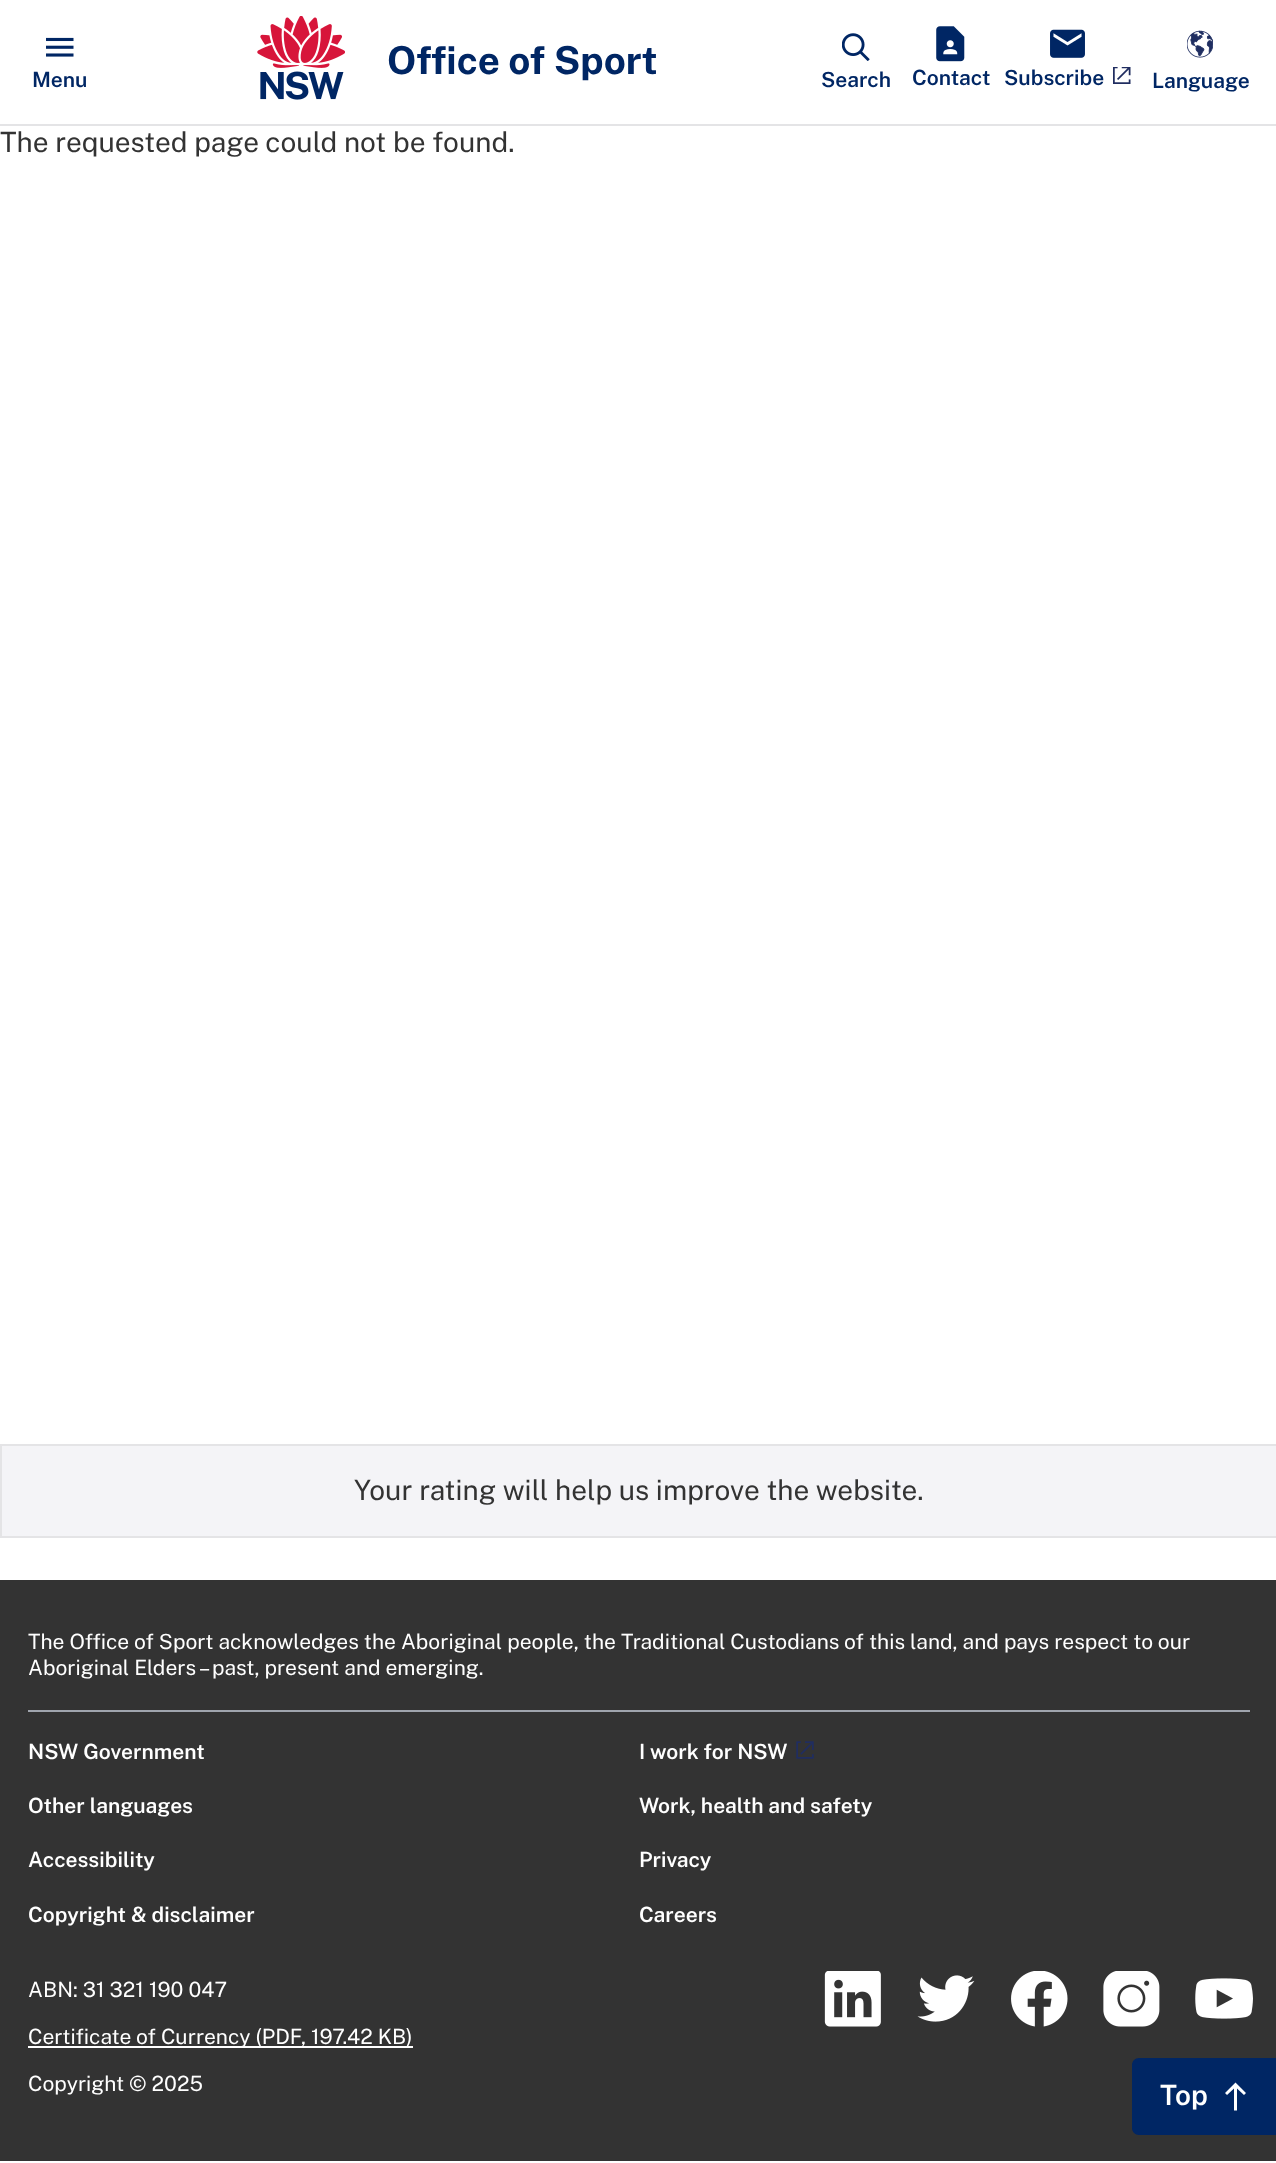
<svg xmlns="http://www.w3.org/2000/svg" width="1276" height="2163" viewBox="0 0 1276 2163">
  <rect width="100%" height="100%" fill="#ffffff"/>
  <rect x="0" y="124" width="1276" height="2" fill="#e4e4e6"/>
  <image x="46" y="37" width="28" height="20" href="img1.png"/>
  <text x="32" y="87" font-family="Public Sans" font-size="21" font-weight="600" fill="#002664">Menu</text>
  <image x="257" y="16" width="88" height="84" href="img2.png"/>
  <text x="387" y="74" font-family="Public Sans" font-size="38.5" font-weight="bold" fill="#002664">Office of Sport</text>
  <image x="842" y="33" width="28" height="28" href="img3.png"/>
  <text x="821" y="87" font-family="Public Sans" font-size="21" font-weight="600" fill="#002664">Search</text>
  <image x="936" y="26" width="29" height="36" href="img4.png"/>
  <text x="912" y="85" font-family="Public Sans" font-size="21" font-weight="600" fill="#002664">Contact</text>
  <image x="1050" y="29" width="35" height="29" href="img5.png"/>
  <text x="1004" y="85" font-family="Public Sans" font-size="21" font-weight="600" fill="#002664">Subscribe</text>
  <image x="1113" y="67" width="18" height="17" href="img6.png"/>
  <image x="1187" y="30" width="26" height="28" href="img7.png"/>
  <text x="1152" y="88" font-family="Public Sans" font-size="21" font-weight="600" fill="#002664">Language</text>
  <text x="0" y="152" font-family="Public Sans" font-size="28" fill="#333333">The requested page could not be found.</text>
  <rect x="0" y="1580" width="1276" height="581" fill="#333333"/>
  <path d="M1139 2058H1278V2135H1139C1135 2135 1132 2132 1132 2128V2065C1132 2061 1135 2058 1139 2058Z" fill="#002664"/>
  <text x="1160" y="2105" font-family="Public Sans" font-size="28" font-weight="600" fill="#ffffff">Top</text>
  <path d="M1225 2093L1235.5 2082.5L1246 2093L1244 2095L1237 2088.5V2110.5H1234V2088.5L1227 2095Z" fill="#ffffff"/>
  <rect x="1" y="1445" width="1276" height="92" fill="#f4f4f7" stroke="#e4e4e6" stroke-width="2"/>
  <text x="354" y="1500" font-family="Public Sans" font-size="28" fill="#333333">Your rating will help us improve the website.</text>
  <text x="28" y="1649" font-family="Public Sans" font-size="21" fill="#ffffff">The Office of Sport acknowledges the Aboriginal people, the Traditional Custodians of this land, and pays respect to our</text>
  <text x="28" y="1675" font-family="Public Sans" font-size="21" fill="#ffffff">Aboriginal Elders – past, present and emerging.</text>
  <rect x="28" y="1710" width="1222" height="2" fill="#a0a5ae"/>
  <text x="28" y="1759" font-family="Public Sans" font-size="21" font-weight="600" fill="#ffffff">NSW Government</text>
  <text x="639" y="1759" font-family="Public Sans" font-size="21" font-weight="600" fill="#ffffff">I work for NSW</text>
  <image x="796" y="1741" width="18" height="18" href="img8.png"/>
  <text x="28" y="1813" font-family="Public Sans" font-size="21" font-weight="600" fill="#ffffff">Other languages</text>
  <text x="639" y="1813" font-family="Public Sans" font-size="21" font-weight="600" fill="#ffffff">Work, health and safety</text>
  <text x="28" y="1867" font-family="Public Sans" font-size="21" font-weight="600" fill="#ffffff">Accessibility</text>
  <text x="639" y="1867" font-family="Public Sans" font-size="21" font-weight="600" fill="#ffffff">Privacy</text>
  <text x="28" y="1922" font-family="Public Sans" font-size="21" font-weight="600" fill="#ffffff">Copyright &amp; disclaimer</text>
  <text x="639" y="1922" font-family="Public Sans" font-size="21" font-weight="600" fill="#ffffff">Careers</text>
  <text x="28" y="1997" font-family="Public Sans" font-size="21" fill="#ffffff">ABN: 31 321 190 047</text>
  <rect x="28" y="2046" width="385" height="2" fill="#ffffff"/>
  <text x="28" y="2044" font-family="Public Sans" font-size="21" fill="#ffffff">Certificate of Currency (PDF, 197.42 KB)</text>
  <text x="28" y="2091" font-family="Public Sans" font-size="21" fill="#ffffff">Copyright © 2025</text>
  <image x="824" y="1971" width="57" height="56" href="img9.png"/>
  <image x="917" y="1975" width="58" height="47" href="img10.png"/>
  <image x="1011" y="1971" width="57" height="56" href="img11.png"/>
  <image x="1103" y="1971" width="57" height="56" href="img12.png"/>
  <image x="1195" y="1978" width="58" height="41" href="img13.png"/>
</svg>
